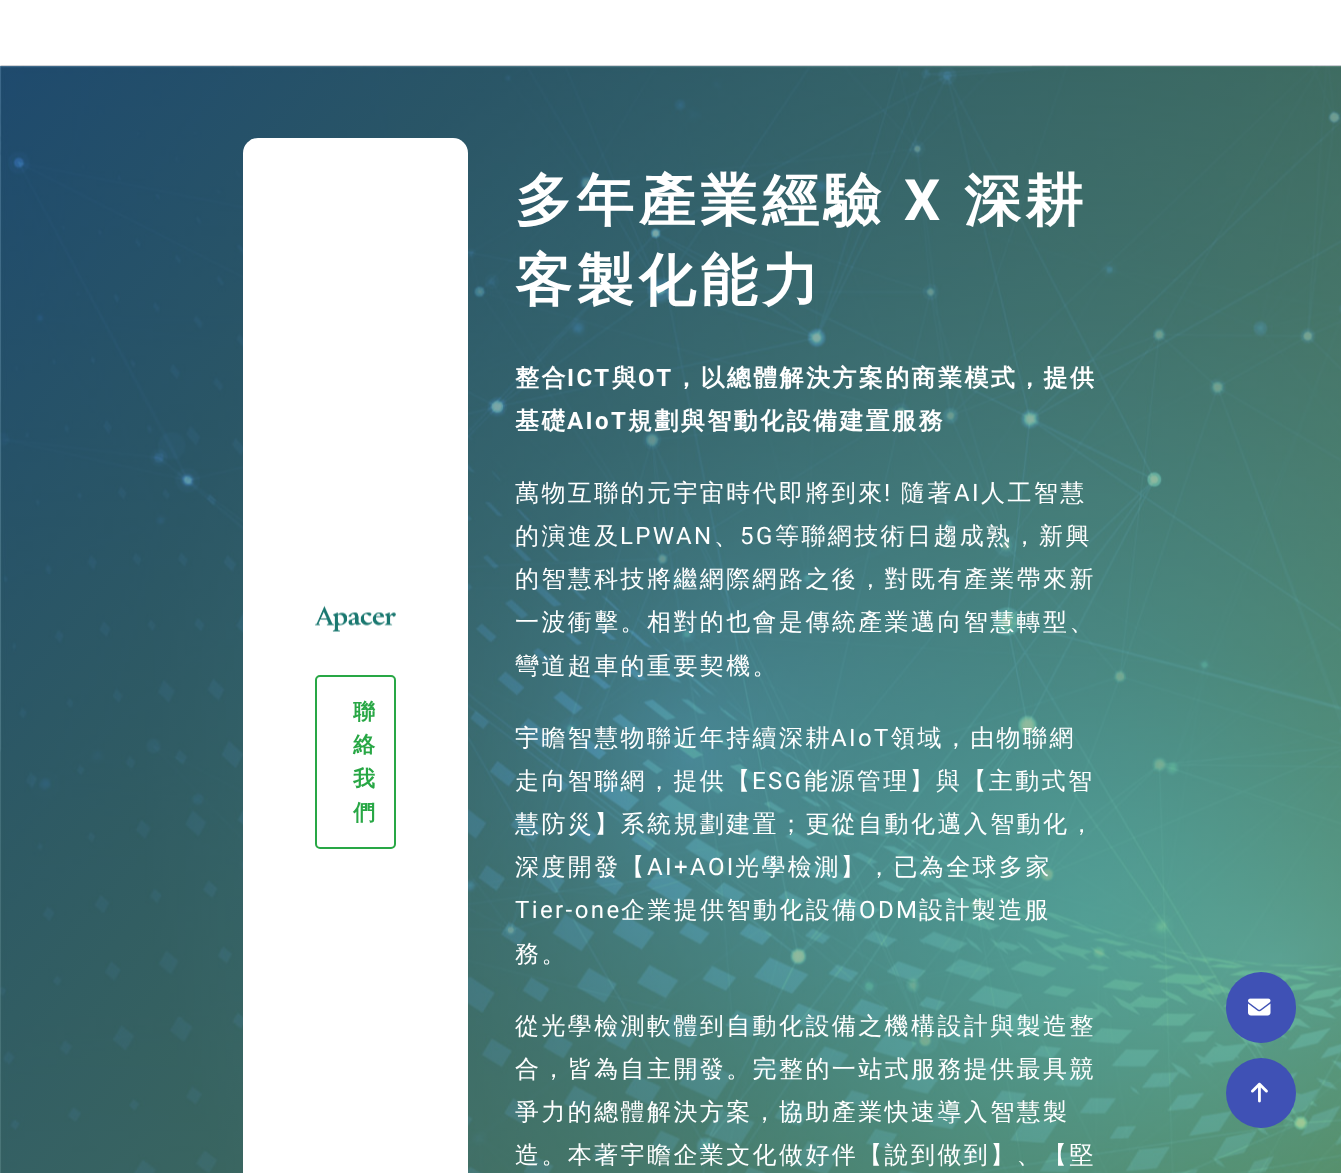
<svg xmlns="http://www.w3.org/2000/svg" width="1341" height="1173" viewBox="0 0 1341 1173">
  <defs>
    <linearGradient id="g1" gradientUnits="userSpaceOnUse" x1="-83" y1="165" x2="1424" y2="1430"><stop offset="0" stop-color="#276490" stop-opacity="0.68"/><stop offset="1" stop-color="#7ebc5c" stop-opacity="0.68"/></linearGradient>
  </defs>
  <rect width="100%" height="100%" fill="#ffffff"/>
  <image x="0" y="65" width="1341" height="1108" href="img1.png"/>
  <rect x="0" y="66" width="1341" height="1107" fill="url(#g1)"/>
  <rect x="243" y="138" width="225" height="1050" rx="15" fill="#ffffff"/>
  <image x="315" y="605" width="81" height="27" href="img2.png"/>
  <rect x="316" y="676" width="79" height="172" rx="4" fill="none" stroke="#28a745" stroke-width="2"/>
  <text x="353" y="719" font-family="WenQuanYi Zen Hei" font-size="22" font-weight="bold" letter-spacing="2.4" fill="#28a745">聯</text>
  <text x="353" y="752" font-family="WenQuanYi Zen Hei" font-size="22" font-weight="bold" letter-spacing="2.4" fill="#28a745">絡</text>
  <text x="353" y="786" font-family="WenQuanYi Zen Hei" font-size="22" font-weight="bold" letter-spacing="2.4" fill="#28a745">我</text>
  <text x="353" y="820" font-family="WenQuanYi Zen Hei" font-size="22" font-weight="bold" letter-spacing="2.4" fill="#28a745">們</text>
  <text x="515" y="220" font-family="WenQuanYi Zen Hei" font-size="57" font-weight="bold" letter-spacing="4.75" fill="#ffffff">多年產業經驗</text>
  <text x="904" y="220" font-family="Roboto" font-size="57" font-weight="bold" letter-spacing="4.75" fill="#ffffff">X</text>
  <text x="964" y="220" font-family="WenQuanYi Zen Hei" font-size="57" font-weight="bold" letter-spacing="4.75" fill="#ffffff">深耕</text>
  <text x="515" y="300" font-family="WenQuanYi Zen Hei" font-size="57" font-weight="bold" letter-spacing="4.75" fill="#ffffff">客製化能力</text>
  <text x="515" y="386" font-family="WenQuanYi Zen Hei" font-size="24" font-weight="bold" letter-spacing="2.4" fill="#ffffff">整合</text>
  <text x="567" y="386" font-family="Roboto" font-size="24" font-weight="bold" letter-spacing="2.4" fill="#ffffff">ICT</text>
  <text x="612" y="386" font-family="WenQuanYi Zen Hei" font-size="24" font-weight="bold" letter-spacing="2.4" fill="#ffffff">與</text>
  <text x="638" y="386" font-family="Roboto" font-size="24" font-weight="bold" letter-spacing="2.4" fill="#ffffff">OT</text>
  <text x="674" y="386" font-family="WenQuanYi Zen Hei" font-size="24" font-weight="bold" letter-spacing="2.4" fill="#ffffff">，以總體解決方案的商業模式，提供</text>
  <text x="515" y="429" font-family="WenQuanYi Zen Hei" font-size="24" font-weight="bold" letter-spacing="2.4" fill="#ffffff">基礎</text>
  <text x="567" y="429" font-family="Roboto" font-size="24" font-weight="bold" letter-spacing="2.4" fill="#ffffff">AIoT</text>
  <text x="628" y="429" font-family="WenQuanYi Zen Hei" font-size="24" font-weight="bold" letter-spacing="2.4" fill="#ffffff">規劃與智動化設備建置服務</text>
  <text x="515" y="501" font-family="WenQuanYi Zen Hei" font-size="24" font-weight="500" letter-spacing="2.4" fill="#ffffff">萬物互聯的元宇宙時代即將到來</text>
  <text x="884" y="501" font-family="Roboto" font-size="24" letter-spacing="2.4" fill="#ffffff">!</text>
  <text x="901" y="501" font-family="WenQuanYi Zen Hei" font-size="24" font-weight="500" letter-spacing="2.4" fill="#ffffff">隨著</text>
  <text x="954" y="501" font-family="Roboto" font-size="24" letter-spacing="2.4" fill="#ffffff">AI</text>
  <text x="981" y="501" font-family="WenQuanYi Zen Hei" font-size="24" font-weight="500" letter-spacing="2.4" fill="#ffffff">人工智慧</text>
  <text x="515" y="544" font-family="WenQuanYi Zen Hei" font-size="24" font-weight="500" letter-spacing="2.4" fill="#ffffff">的演進及</text>
  <text x="620" y="544" font-family="Roboto" font-size="24" letter-spacing="2.4" fill="#ffffff">LPWAN</text>
  <text x="714" y="544" font-family="WenQuanYi Zen Hei" font-size="24" font-weight="500" letter-spacing="2.4" fill="#ffffff">、</text>
  <text x="740" y="544" font-family="Roboto" font-size="24" letter-spacing="2.4" fill="#ffffff">5G</text>
  <text x="775" y="544" font-family="WenQuanYi Zen Hei" font-size="24" font-weight="500" letter-spacing="2.4" fill="#ffffff">等聯網技術日趨成熟，新興</text>
  <text x="515" y="587" font-family="WenQuanYi Zen Hei" font-size="24" font-weight="500" letter-spacing="2.4" fill="#ffffff">的智慧科技將繼網際網路之後，對既有產業帶來新</text>
  <text x="515" y="630" font-family="WenQuanYi Zen Hei" font-size="24" font-weight="500" letter-spacing="2.4" fill="#ffffff">一波衝擊。相對的也會是傳統產業邁向智慧轉型、</text>
  <text x="515" y="674" font-family="WenQuanYi Zen Hei" font-size="24" font-weight="500" letter-spacing="2.4" fill="#ffffff">彎道超車的重要契機。</text>
  <text x="515" y="746" font-family="WenQuanYi Zen Hei" font-size="24" font-weight="500" letter-spacing="2.4" fill="#ffffff">宇瞻智慧物聯近年持續深耕</text>
  <text x="831" y="746" font-family="Roboto" font-size="24" letter-spacing="2.4" fill="#ffffff">AIoT</text>
  <text x="891" y="746" font-family="WenQuanYi Zen Hei" font-size="24" font-weight="500" letter-spacing="2.4" fill="#ffffff">領域，由物聯網</text>
  <text x="515" y="789" font-family="WenQuanYi Zen Hei" font-size="24" font-weight="500" letter-spacing="2.4" fill="#ffffff">走向智聯網，提供【</text>
  <text x="752" y="789" font-family="Roboto" font-size="24" letter-spacing="2.4" fill="#ffffff">ESG</text>
  <text x="804" y="789" font-family="WenQuanYi Zen Hei" font-size="24" font-weight="500" letter-spacing="2.4" fill="#ffffff">能源管理】與【主動式智</text>
  <text x="515" y="832" font-family="WenQuanYi Zen Hei" font-size="24" font-weight="500" letter-spacing="2.4" fill="#ffffff">慧防災】系統規劃建置；更從自動化邁入智動化，</text>
  <text x="515" y="875" font-family="WenQuanYi Zen Hei" font-size="24" font-weight="500" letter-spacing="2.4" fill="#ffffff">深度開發【</text>
  <text x="647" y="875" font-family="Roboto" font-size="24" letter-spacing="2.4" fill="#ffffff">AI+AOI</text>
  <text x="735" y="875" font-family="WenQuanYi Zen Hei" font-size="24" font-weight="500" letter-spacing="2.4" fill="#ffffff">光學檢測】，已為全球多家</text>
  <text x="515" y="918" font-family="Roboto" font-size="24" letter-spacing="2.4" fill="#ffffff">Tier-one</text>
  <text x="621" y="918" font-family="WenQuanYi Zen Hei" font-size="24" font-weight="500" letter-spacing="2.4" fill="#ffffff">企業提供智動化設備</text>
  <text x="859" y="918" font-family="Roboto" font-size="24" letter-spacing="2.4" fill="#ffffff">ODM</text>
  <text x="919" y="918" font-family="WenQuanYi Zen Hei" font-size="24" font-weight="500" letter-spacing="2.4" fill="#ffffff">設計製造服</text>
  <text x="515" y="962" font-family="WenQuanYi Zen Hei" font-size="24" font-weight="500" letter-spacing="2.4" fill="#ffffff">務。</text>
  <text x="515" y="1034" font-family="WenQuanYi Zen Hei" font-size="24" font-weight="500" letter-spacing="2.4" fill="#ffffff">從光學檢測軟體到自動化設備之機構設計與製造整</text>
  <text x="515" y="1077" font-family="WenQuanYi Zen Hei" font-size="24" font-weight="500" letter-spacing="2.4" fill="#ffffff">合，皆為自主開發。完整的一站式服務提供最具競</text>
  <text x="515" y="1120" font-family="WenQuanYi Zen Hei" font-size="24" font-weight="500" letter-spacing="2.4" fill="#ffffff">爭力的總體解決方案，協助產業快速導入智慧製</text>
  <text x="515" y="1163" font-family="WenQuanYi Zen Hei" font-size="24" font-weight="500" letter-spacing="2.4" fill="#ffffff">造。本著宇瞻企業文化做好伴【說到做到】、【堅</text>
  <rect x="1226" y="972" width="70" height="71" rx="35" fill="#3f51b5"/>
  <image x="1248" y="998" width="23" height="18" href="img3.png"/>
  <circle cx="1261" cy="1093" r="35" fill="#3f51b5"/>
  <image x="1251" y="1082" width="17" height="21" href="img4.png"/>
</svg>
